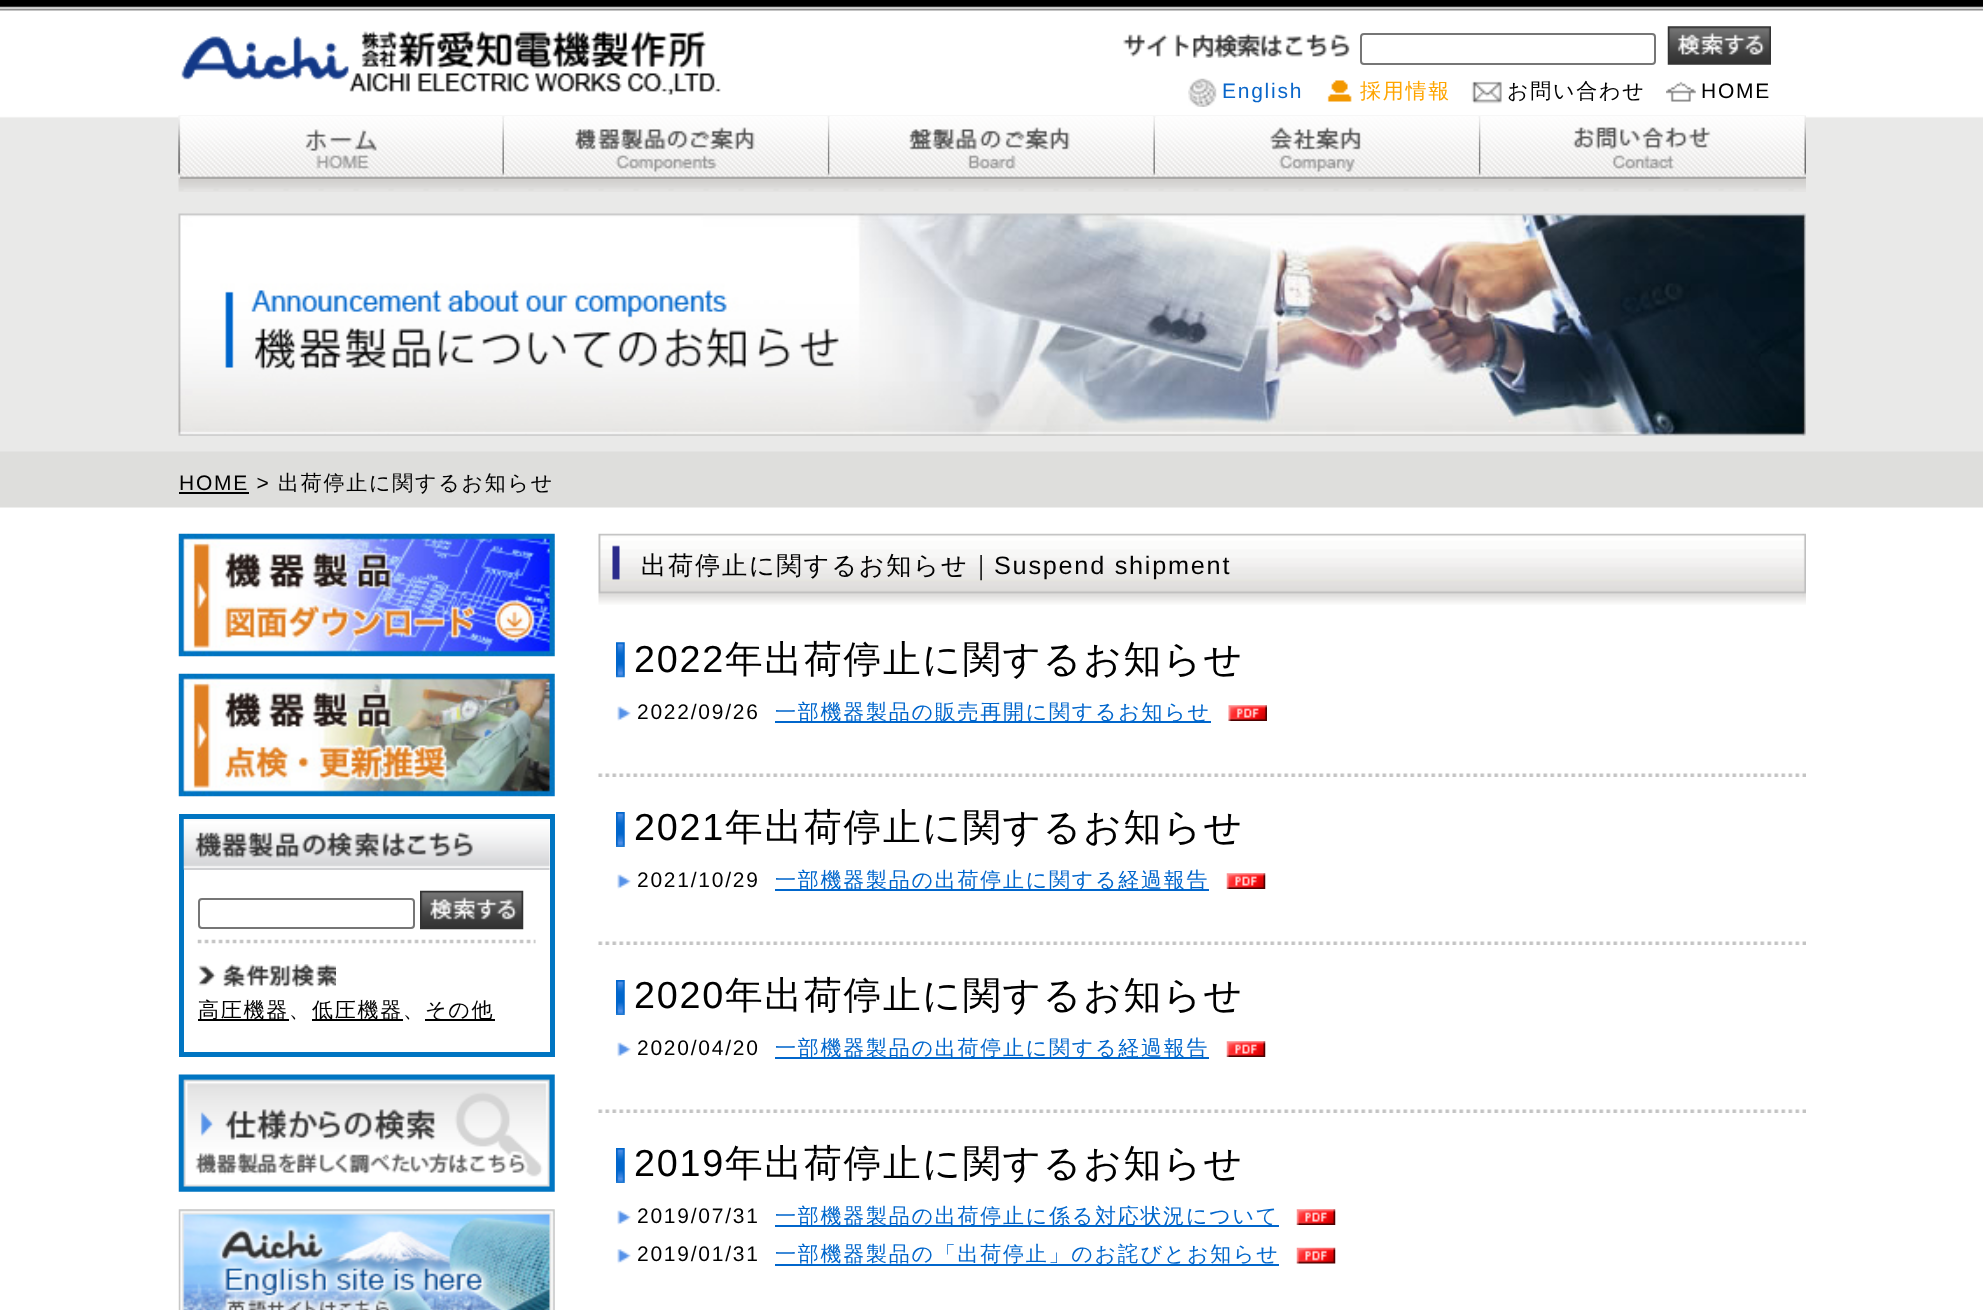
<svg xmlns="http://www.w3.org/2000/svg" width="1983" height="1310" viewBox="0 0 1983 1310">
  <rect width="100%" height="100%" fill="#ffffff"/>
  <image x="0" y="0" width="1983" height="508" href="img1.png"/>
  <image x="181" y="31" width="540" height="64" href="img2.png"/>
  <image x="1123" y="33" width="227" height="25" href="img3.png"/>
  <rect x="1361" y="34" width="294" height="30" rx="3" fill="none" stroke="#767676" stroke-width="2"/>
  <image x="1667" y="26" width="104" height="39" href="img4.png"/>
  <image x="1188" y="78" width="29" height="29" href="img5.png"/>
  <text x="1222" y="98" font-family="Liberation Sans" font-size="21" letter-spacing="1.75" fill="#0966ca">English</text>
  <image x="1327" y="80" width="25" height="22" href="img6.png"/>
  <text x="1360" y="98" font-family="WenQuanYi Zen Hei" font-size="21" font-weight="500" letter-spacing="1.75" fill="#ffa500">採用情報</text>
  <image x="1471" y="81" width="31" height="23" href="img7.png"/>
  <text x="1507" y="98" font-family="WenQuanYi Zen Hei" font-size="21" font-weight="500" letter-spacing="1.75" fill="#000000">お問い合わせ</text>
  <image x="1666" y="81" width="30" height="21" href="img8.png"/>
  <text x="1701" y="98" font-family="Liberation Sans" font-size="21" letter-spacing="1.75" fill="#000000">HOME</text>
  <image x="178" y="115" width="1628" height="77" href="img9.png"/>
  <image x="178" y="116" width="1628" height="63" href="img10.png"/>
  <image x="180" y="119" width="323" height="60" href="img11.png"/>
  <image x="504" y="118" width="324" height="61" href="img12.png"/>
  <image x="829" y="117" width="325" height="62" href="img13.png"/>
  <image x="1155" y="118" width="324" height="61" href="img14.png"/>
  <image x="1480" y="116" width="325" height="63" href="img15.png"/>
  <image x="178" y="213" width="1628" height="223" href="img16.png"/>
  <text x="179" y="490" font-family="Liberation Sans" font-size="21" letter-spacing="1.75" fill="#000000">HOME &gt;</text>
  <rect x="179" y="492" width="70" height="2" fill="#000000"/>
  <text x="278" y="490" font-family="WenQuanYi Zen Hei" font-size="21" font-weight="500" letter-spacing="1.75" fill="#000000">出荷停止に関するお知らせ</text>
  <image x="178" y="533" width="377" height="124" href="img17.png"/>
  <image x="178" y="673" width="377" height="124" href="img18.png"/>
  <rect x="181.5" y="816.5" width="371" height="238" fill="none" stroke="#0075c2" stroke-width="5"/>
  <image x="183" y="819" width="367" height="51" href="img19.png"/>
  <rect x="199" y="899" width="215" height="29" rx="3" fill="none" stroke="#767676" stroke-width="2"/>
  <image x="420" y="890" width="104" height="40" href="img20.png"/>
  <image x="197" y="939" width="339" height="5" href="img21.png"/>
  <image x="197" y="964" width="139" height="23" href="img22.png"/>
  <rect x="198" y="1019" width="91" height="2" fill="#000000"/>
  <text x="198" y="1017" font-family="WenQuanYi Zen Hei" font-size="21" font-weight="500" letter-spacing="1.75" fill="#000000">高圧機器、</text>
  <rect x="312" y="1019" width="91" height="2" fill="#000000"/>
  <text x="312" y="1017" font-family="WenQuanYi Zen Hei" font-size="21" font-weight="500" letter-spacing="1.75" fill="#000000">低圧機器、</text>
  <rect x="425" y="1019" width="70" height="2" fill="#000000"/>
  <text x="425" y="1017" font-family="WenQuanYi Zen Hei" font-size="21" font-weight="500" letter-spacing="1.75" fill="#000000">その他</text>
  <image x="178" y="1074" width="377" height="118" href="img23.png"/>
  <image x="178" y="1209" width="377" height="101" href="img24.png"/>
  <image x="598" y="533" width="1208" height="72" href="img25.png"/>
  <text x="641" y="574" font-family="WenQuanYi Zen Hei" font-size="25.25" font-weight="500" letter-spacing="1.75" fill="#000000">出荷停止に関するお知らせ｜</text>
  <text x="994" y="574" font-family="Liberation Sans" font-size="25.25" letter-spacing="1.75" fill="#000000">Suspend shipment</text>
  <image x="616" y="642" width="9" height="36" href="img26.png"/>
  <text x="634" y="672" font-family="Liberation Sans" font-size="37.75" letter-spacing="1.75" fill="#000000">2022</text>
  <text x="725" y="672" font-family="WenQuanYi Zen Hei" font-size="37.75" font-weight="500" letter-spacing="1.75" fill="#000000">年出荷停止に関するお知らせ</text>
  <image x="617" y="706" width="14" height="15" href="img27.png"/>
  <text x="637" y="719" font-family="Liberation Sans" font-size="21" letter-spacing="1.75" fill="#000000">2022/09/26</text>
  <rect x="775" y="721" width="436" height="2" fill="#0066cc"/>
  <text x="775" y="719" font-family="WenQuanYi Zen Hei" font-size="21" font-weight="500" letter-spacing="1.75" fill="#0066cc">一部機器製品の販売再開に関するお知らせ</text>
  <image x="1228" y="705" width="39" height="16" href="img28.png"/>
  <image x="598" y="773" width="1208" height="4" href="img29.png"/>
  <image x="616" y="812" width="9" height="35" href="img30.png"/>
  <text x="634" y="840" font-family="Liberation Sans" font-size="37.75" letter-spacing="1.75" fill="#000000">2021</text>
  <text x="725" y="840" font-family="WenQuanYi Zen Hei" font-size="37.75" font-weight="500" letter-spacing="1.75" fill="#000000">年出荷停止に関するお知らせ</text>
  <image x="617" y="874" width="14" height="15" href="img27.png"/>
  <text x="637" y="887" font-family="Liberation Sans" font-size="21" letter-spacing="1.75" fill="#000000">2021/10/29</text>
  <rect x="775" y="889" width="434" height="2" fill="#0066cc"/>
  <text x="775" y="887" font-family="WenQuanYi Zen Hei" font-size="21" font-weight="500" letter-spacing="1.75" fill="#0066cc">一部機器製品の出荷停止に関する経過報告</text>
  <image x="1226" y="873" width="40" height="16" href="img31.png"/>
  <image x="598" y="941" width="1208" height="4" href="img29.png"/>
  <image x="616" y="980" width="9" height="35" href="img30.png"/>
  <text x="634" y="1008" font-family="Liberation Sans" font-size="37.75" letter-spacing="1.75" fill="#000000">2020</text>
  <text x="725" y="1008" font-family="WenQuanYi Zen Hei" font-size="37.75" font-weight="500" letter-spacing="1.75" fill="#000000">年出荷停止に関するお知らせ</text>
  <image x="617" y="1042" width="14" height="15" href="img27.png"/>
  <text x="637" y="1055" font-family="Liberation Sans" font-size="21" letter-spacing="1.75" fill="#000000">2020/04/20</text>
  <rect x="775" y="1057" width="434" height="2" fill="#0066cc"/>
  <text x="775" y="1055" font-family="WenQuanYi Zen Hei" font-size="21" font-weight="500" letter-spacing="1.75" fill="#0066cc">一部機器製品の出荷停止に関する経過報告</text>
  <image x="1226" y="1041" width="40" height="16" href="img31.png"/>
  <image x="598" y="1109" width="1208" height="4" href="img29.png"/>
  <image x="616" y="1148" width="9" height="35" href="img30.png"/>
  <text x="634" y="1176" font-family="Liberation Sans" font-size="37.75" letter-spacing="1.75" fill="#000000">2019</text>
  <text x="725" y="1176" font-family="WenQuanYi Zen Hei" font-size="37.75" font-weight="500" letter-spacing="1.75" fill="#000000">年出荷停止に関するお知らせ</text>
  <image x="617" y="1210" width="14" height="15" href="img27.png"/>
  <text x="637" y="1223" font-family="Liberation Sans" font-size="21" letter-spacing="1.75" fill="#000000">2019/07/31</text>
  <rect x="775" y="1225" width="504" height="2" fill="#0066cc"/>
  <text x="775" y="1223" font-family="WenQuanYi Zen Hei" font-size="21" font-weight="500" letter-spacing="1.75" fill="#0066cc">一部機器製品の出荷停止に係る対応状況について</text>
  <image x="1296" y="1209" width="40" height="16" href="img31.png"/>
  <image x="617" y="1249" width="14" height="15" href="img32.png"/>
  <text x="637" y="1261" font-family="Liberation Sans" font-size="21" letter-spacing="1.75" fill="#000000">2019/01/31</text>
  <rect x="775" y="1264" width="504" height="2" fill="#0066cc"/>
  <text x="775" y="1261" font-family="WenQuanYi Zen Hei" font-size="21" font-weight="500" letter-spacing="1.75" fill="#0066cc">一部機器製品の「出荷停止」のお詫びとお知らせ</text>
  <image x="1296" y="1247" width="40" height="17" href="img33.png"/>
</svg>
